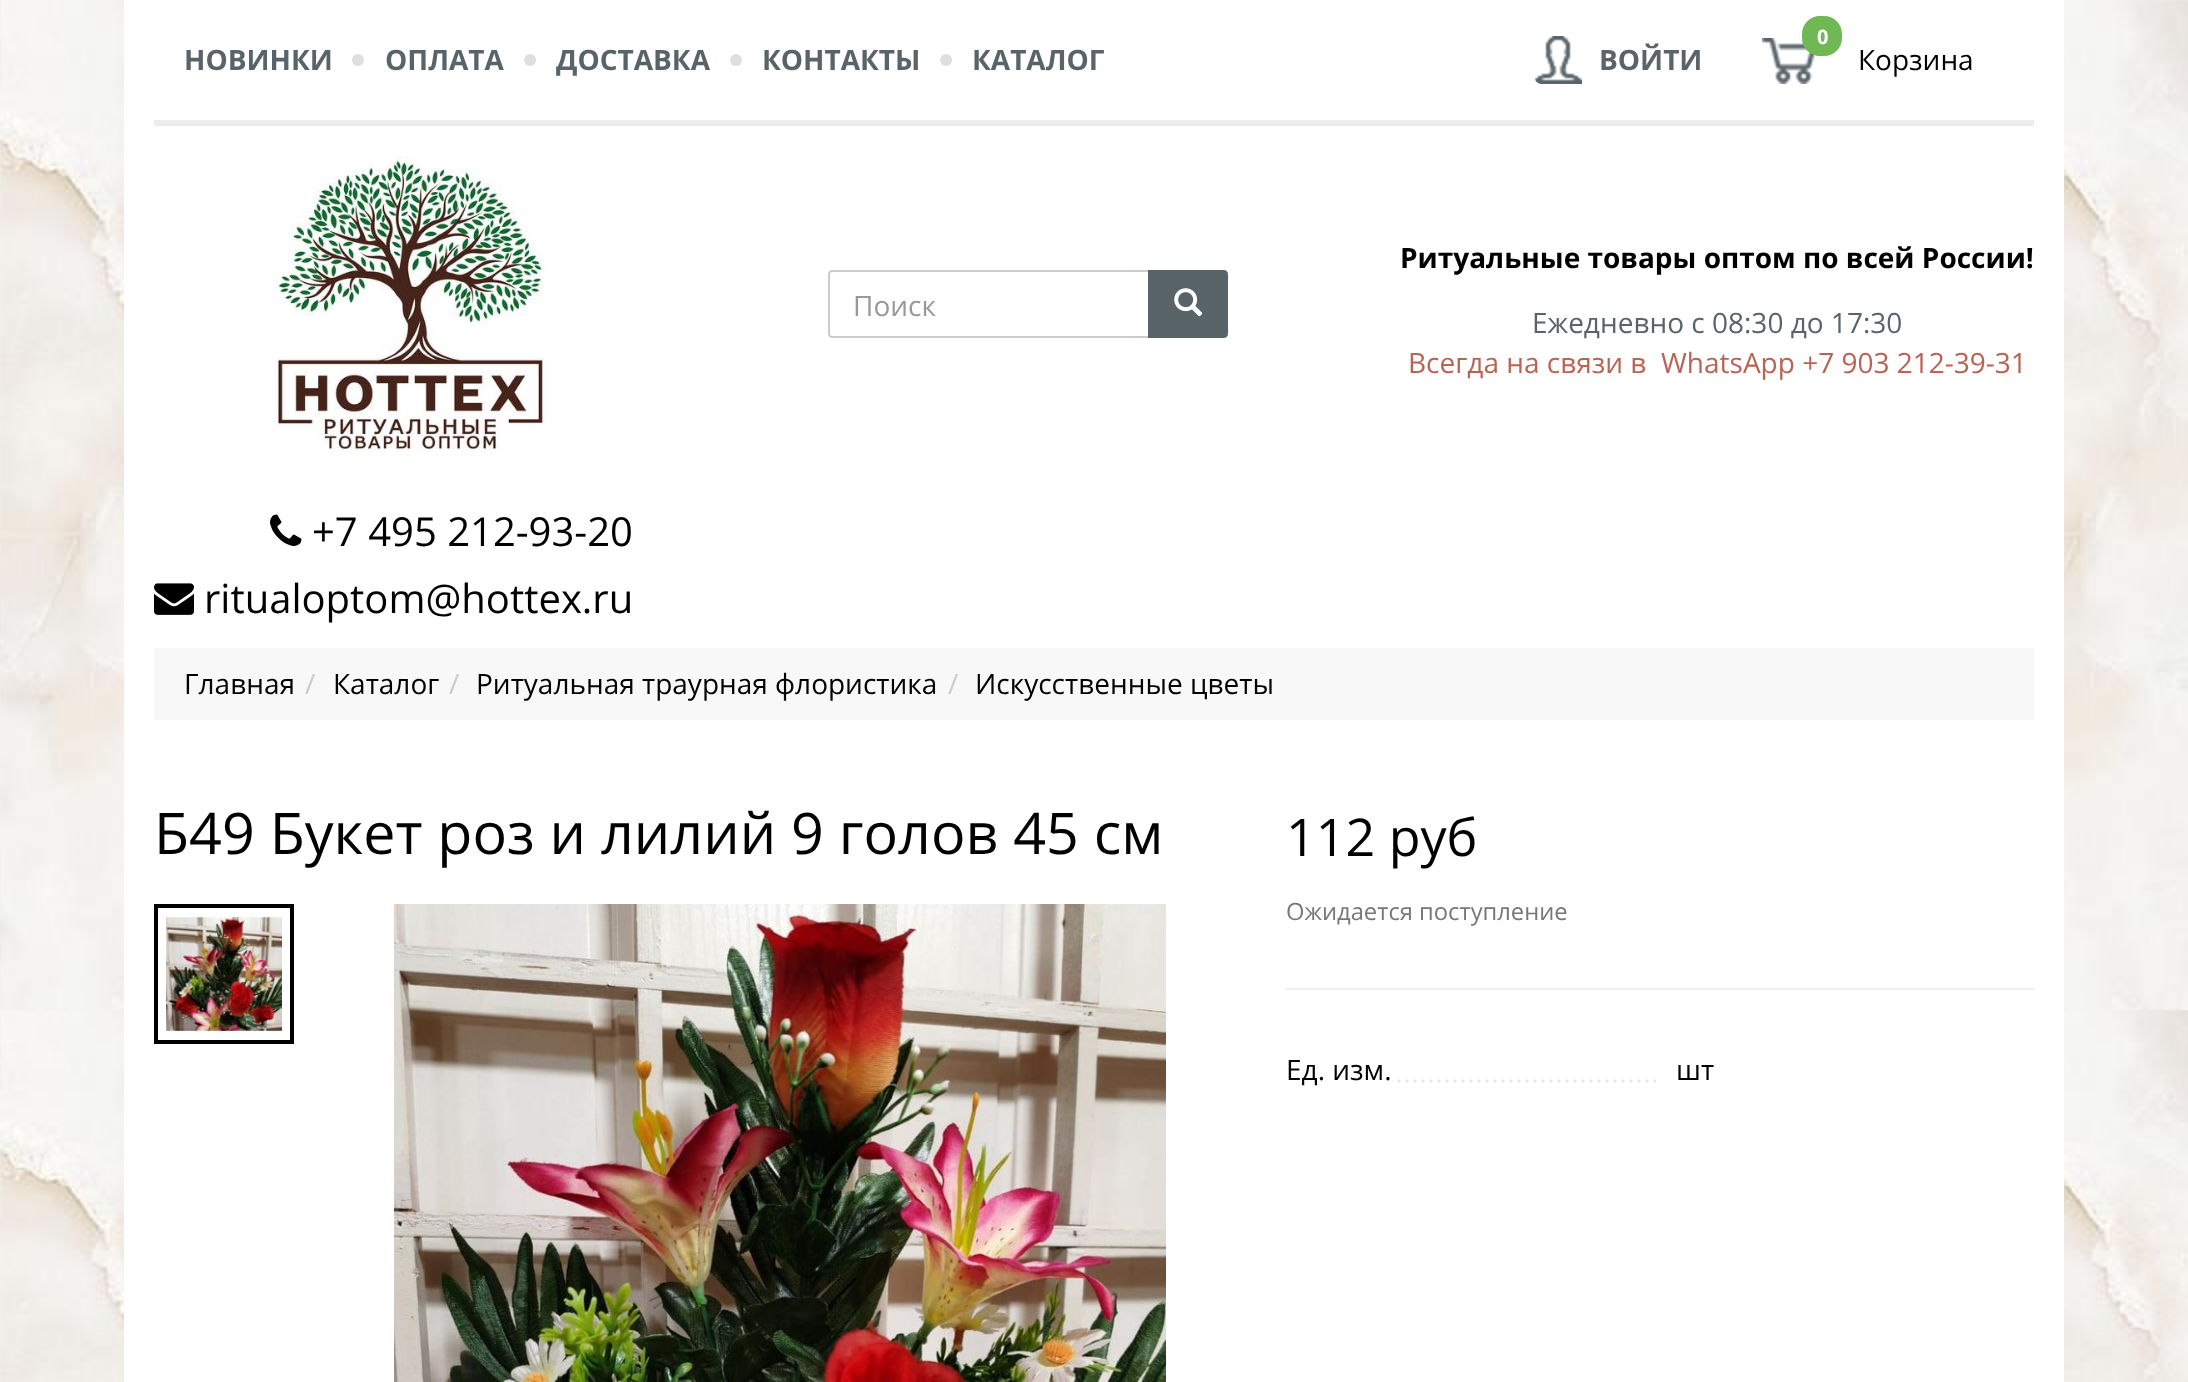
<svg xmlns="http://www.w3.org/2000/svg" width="2188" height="1382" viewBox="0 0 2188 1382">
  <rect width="100%" height="100%" fill="#ffffff"/>
  <image x="0" y="0" width="2188" height="1382" href="img1.png"/>
  <rect x="124" y="0" width="1940" height="1382" fill="#ffffff"/>
  <rect x="154" y="120" width="1880" height="6" fill="#ededed"/>
  <text x="184" y="70" font-family="Open Sans" font-size="28" font-weight="bold" fill="#596469">НОВИНКИ</text>
  <circle cx="358" cy="60" r="6" fill="#dedede"/>
  <text x="385" y="70" font-family="Open Sans" font-size="28" font-weight="bold" fill="#596469">ОПЛАТА</text>
  <circle cx="530" cy="60" r="6" fill="#dedede"/>
  <text x="556" y="70" font-family="Open Sans" font-size="28" font-weight="bold" fill="#596469">ДОСТАВКА</text>
  <circle cx="736" cy="60" r="6" fill="#dedede"/>
  <text x="762" y="70" font-family="Open Sans" font-size="28" font-weight="bold" fill="#596469">КОНТАКТЫ</text>
  <circle cx="946" cy="60" r="6" fill="#dedede"/>
  <text x="972" y="70" font-family="Open Sans" font-size="28" font-weight="bold" fill="#596469">КАТАЛОГ</text>
  <image x="1534" y="36" width="48" height="48" href="img2.png"/>
  <text x="1599" y="70" font-family="Open Sans" font-size="28" font-weight="bold" fill="#596469">ВОЙТИ</text>
  <image x="1762" y="38" width="53" height="46" href="img3.png"/>
  <rect x="1802" y="16" width="40" height="40" rx="18" fill="#6fb854"/>
  <text x="1817" y="44" font-family="Open Sans" font-size="20" font-weight="bold" fill="#ffffff">0</text>
  <text x="1858" y="70" font-family="Open Sans" font-size="28" fill="#000000">Корзина</text>
  <image x="274" y="156" width="274" height="295" href="img4.png"/>
  <path d="M832 271H1149V337H832C830.5 337 829 335.5 829 334V274C829 272.5 830.5 271 832 271Z" fill="none" stroke="#cccccc" stroke-width="2"/>
  <text x="853" y="316" font-family="Open Sans" font-size="28" fill="#999999">Поиск</text>
  <path d="M1149 271H1224C1225.5 271 1227 272.5 1227 274V334C1227 335.5 1225.5 337 1224 337H1149Z" fill="#596469" stroke="#596469" stroke-width="2"/>
  <image x="1174" y="288" width="29" height="29" href="img5.png"/>
  <text x="1400" y="268" font-family="Open Sans" font-size="28" font-weight="bold" fill="#000000">Ритуальные товары оптом по всей России!</text>
  <text x="1532" y="333" font-family="Open Sans" font-size="28" fill="#596469">Ежедневно с 08:30 до 17:30</text>
  <text x="1408" y="373" font-family="Open Sans" font-size="28" fill="#b86354" xml:space="preserve">Всегда на связи в  WhatsApp +7 903 212-39-31</text>
  <image x="270" y="514" width="32" height="32" href="img6.png"/>
  <text x="312" y="546" font-family="Open Sans" font-size="40" fill="#000000">+7 495 212-93-20</text>
  <image x="154" y="583" width="40" height="32" href="img7.png"/>
  <text x="204" y="613" font-family="Open Sans" font-size="40" fill="#000000">ritualoptom@hottex.ru</text>
  <rect x="154" y="648" width="1880" height="72" fill="#f8f8f8"/>
  <text x="184" y="694" font-family="Open Sans" font-size="28" fill="#000000">Главная</text>
  <text x="305" y="694" font-family="Open Sans" font-size="28" fill="#cccccc">/</text>
  <text x="333" y="694" font-family="Open Sans" font-size="28" fill="#000000">Каталог</text>
  <text x="449" y="694" font-family="Open Sans" font-size="28" fill="#cccccc">/</text>
  <text x="476" y="694" font-family="Open Sans" font-size="28" fill="#000000">Ритуальная траурная флористика</text>
  <text x="948" y="694" font-family="Open Sans" font-size="28" fill="#cccccc">/</text>
  <text x="975" y="694" font-family="Open Sans" font-size="28" fill="#000000">Искусственные цветы</text>
  <text x="154" y="854" font-family="Open Sans" font-size="57.4" fill="#000000">Б49 Букет роз и лилий 9 голов 45 см</text>
  <rect x="156" y="906" width="136" height="136" fill="none" stroke="#000000" stroke-width="4"/>
  <image x="166" y="916" width="116" height="116" href="img8.png"/>
  <image x="394" y="904" width="772" height="478" href="img9.png"/>
  <text x="1286" y="856" font-family="Open Sans" font-size="52" fill="#000000">112 руб</text>
  <text x="1286" y="920" font-family="Open Sans" font-size="23.75" fill="#777777">Ожидается поступление</text>
  <rect x="1286" y="988" width="748" height="2" fill="#eeeeee"/>
  <image x="1392" y="1079" width="264" height="3" href="img10.png"/>
  <text x="1286" y="1080" font-family="Open Sans" font-size="28" fill="#000000">Ед. изм.</text>
  <text x="1676" y="1080" font-family="Open Sans" font-size="28" fill="#000000">шт</text>
</svg>
